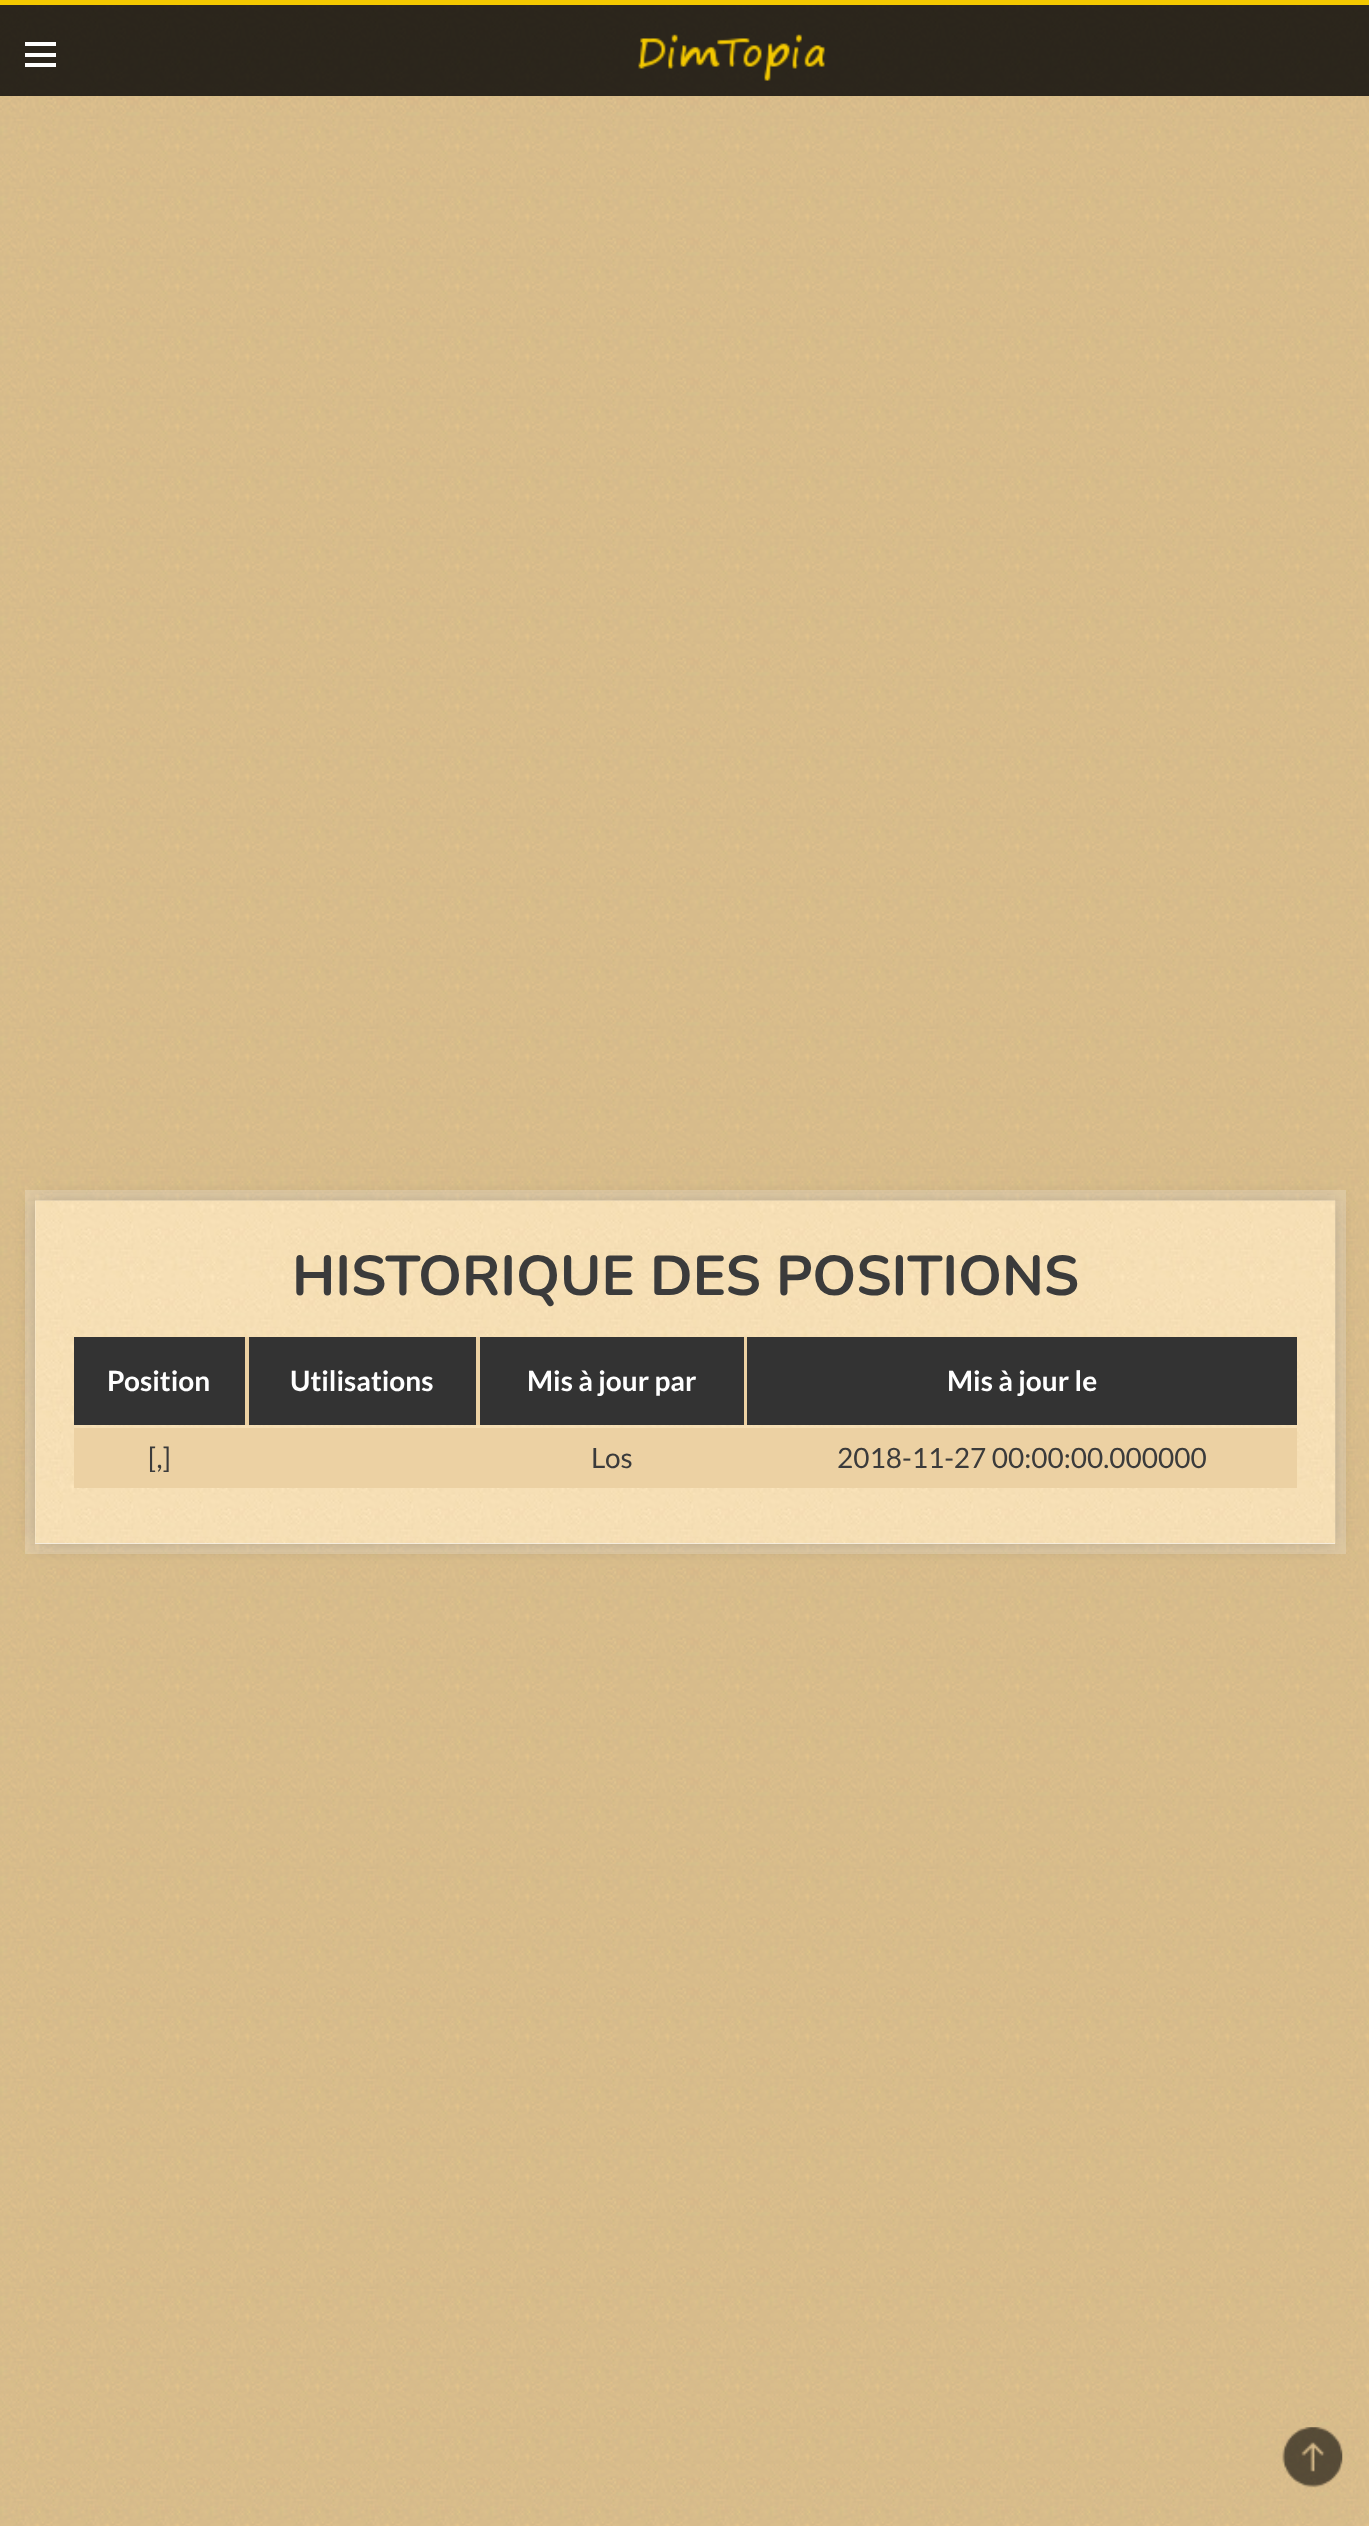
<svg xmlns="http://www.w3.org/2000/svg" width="1369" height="2526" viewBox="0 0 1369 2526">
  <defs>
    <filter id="blur1" x="-50%" y="-200%" width="200%" height="500%"><feGaussianBlur stdDeviation="9"/></filter>
  </defs>
  <rect width="100%" height="100%" fill="#ffffff"/>
  <image x="0" y="5" width="1369" height="2521" href="img1.png"/>
  <rect x="0" y="5" width="1369" height="91" fill="#000000" fill-opacity="0.8"/>
  <rect x="0" y="0" width="1369" height="5" fill="#f3c800"/>
  <rect x="25" y="63" width="31" height="4" fill="#ffffff"/>
  <rect x="25" y="53" width="31" height="4" fill="#ffffff"/>
  <rect x="25" y="42" width="31" height="4" fill="#ffffff"/>
  <image x="638" y="34" width="187" height="47" href="img2.png"/>
  <rect x="35" y="1201" width="1300" height="343" fill="#333333" fill-opacity="0.31" filter="url(#blur1)"/>
  <rect x="35" y="1543" width="1300" height="1" fill="#f1f1f1"/>
  <image x="35" y="1200" width="1301" height="344" href="img3.png"/>
  <rect x="245" y="1337" width="502" height="88" fill="#ecd1a3"/>
  <rect x="74" y="1337" width="171" height="88" fill="#333333"/>
  <rect x="249" y="1337" width="227" height="88" fill="#333333"/>
  <rect x="480" y="1337" width="264" height="88" fill="#333333"/>
  <rect x="747" y="1337" width="550" height="88" fill="#333333"/>
  <rect x="74" y="1428" width="1223" height="60" fill="#ecd1a3"/>
  <rect x="30.5" y="1195.5" width="1310" height="353" fill="none" stroke="#ffffff" stroke-opacity="0.2" stroke-width="11"/>
  <text x="292" y="1295" font-family="Nunito" font-size="56" font-weight="bold" fill="#3b3b3b">HISTORIQUE DES POSITIONS</text>
  <text x="107" y="1391" font-family="Lato" font-size="28" font-weight="bold" fill="#ffffff">Position</text>
  <text x="290" y="1391" font-family="Lato" font-size="28" font-weight="bold" fill="#ffffff">Utilisations</text>
  <text x="527" y="1391" font-family="Lato" font-size="28" font-weight="bold" fill="#ffffff">Mis à jour par</text>
  <text x="947" y="1391" font-family="Lato" font-size="28" font-weight="bold" fill="#ffffff">Mis à jour le</text>
  <text x="148" y="1468" font-family="Lato" font-size="28" fill="#3b3b3b">[,]</text>
  <text x="591" y="1468" font-family="Lato" font-size="28" fill="#3b3b3b">Los</text>
  <text x="837" y="1468" font-family="Lato" font-size="28" fill="#3b3b3b">2018-11-27 00:00:00.000000</text>
  <image x="1282" y="2427" width="61" height="61" href="img4.png"/>
</svg>
